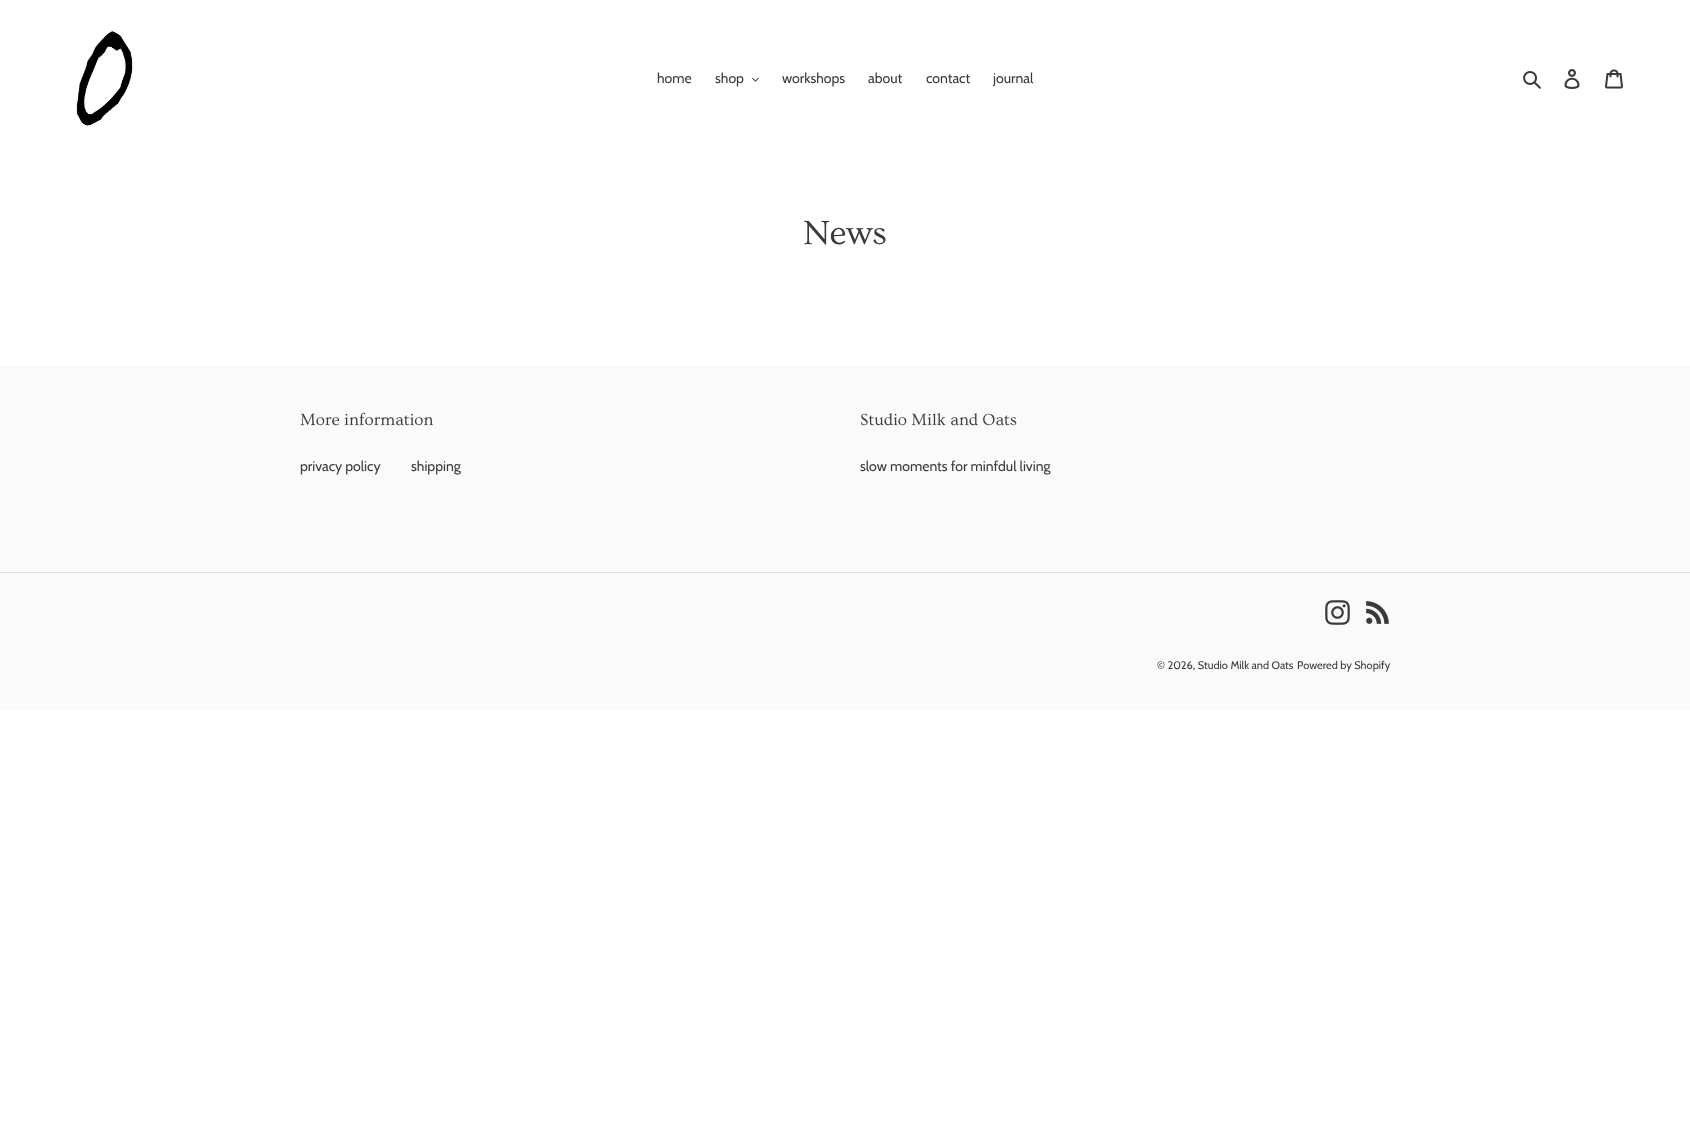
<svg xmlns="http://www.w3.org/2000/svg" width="1690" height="1127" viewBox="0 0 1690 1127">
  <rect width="100%" height="100%" fill="#ffffff"/>
  <image x="75" y="31" width="58" height="95" href="img1.png"/>
  <text x="657" y="83" font-family="Cabin" font-size="14" fill="#3a3a3a">home</text>
  <text x="715" y="83" font-family="Cabin" font-size="14" fill="#3a3a3a">shop</text>
  <image x="752" y="77" width="7" height="5" href="img2.png"/>
  <text x="782" y="83" font-family="Cabin" font-size="14" fill="#3a3a3a">workshops</text>
  <text x="868" y="83" font-family="Cabin" font-size="14" fill="#3a3a3a">about</text>
  <text x="926" y="83" font-family="Cabin" font-size="14" fill="#3a3a3a">contact</text>
  <text x="993" y="83" font-family="Cabin" font-size="14" fill="#3a3a3a">journal</text>
  <image x="1523" y="71" width="18" height="18" href="img3.png"/>
  <image x="1564" y="69" width="16" height="20" href="img4.png"/>
  <image x="1605" y="69" width="18" height="20" href="img5.png"/>
  <text x="803" y="244" font-family="Ovo" font-size="35" fill="#3a3a3a">News</text>
  <rect x="0" y="365" width="1690" height="345" fill="#fafafa"/>
  <text x="300" y="425" font-family="Ovo" font-size="17" fill="#3a3a3a">More information</text>
  <text x="300" y="471" font-family="Cabin" font-size="14" fill="#3a3a3a">privacy policy</text>
  <text x="411" y="471" font-family="Cabin" font-size="14" fill="#3a3a3a">shipping</text>
  <text x="860" y="425" font-family="Ovo" font-size="17" fill="#3a3a3a">Studio Milk and Oats</text>
  <text x="860" y="471" font-family="Cabin" font-size="14" fill="#3a3a3a">slow moments for minfdul living</text>
  <rect x="0" y="572" width="1690" height="1" fill="#e1e1e1"/>
  <image x="1325" y="600" width="25" height="25" href="img6.png"/>
  <image x="1366" y="601" width="23" height="23" href="img7.png"/>
  <text x="1157" y="669" font-family="Cabin" font-size="11" fill="#3a3a3a">© 2026, Studio Milk and Oats</text>
  <text x="1297" y="669" font-family="Cabin" font-size="11" fill="#3a3a3a">Powered by Shopify</text>
</svg>
